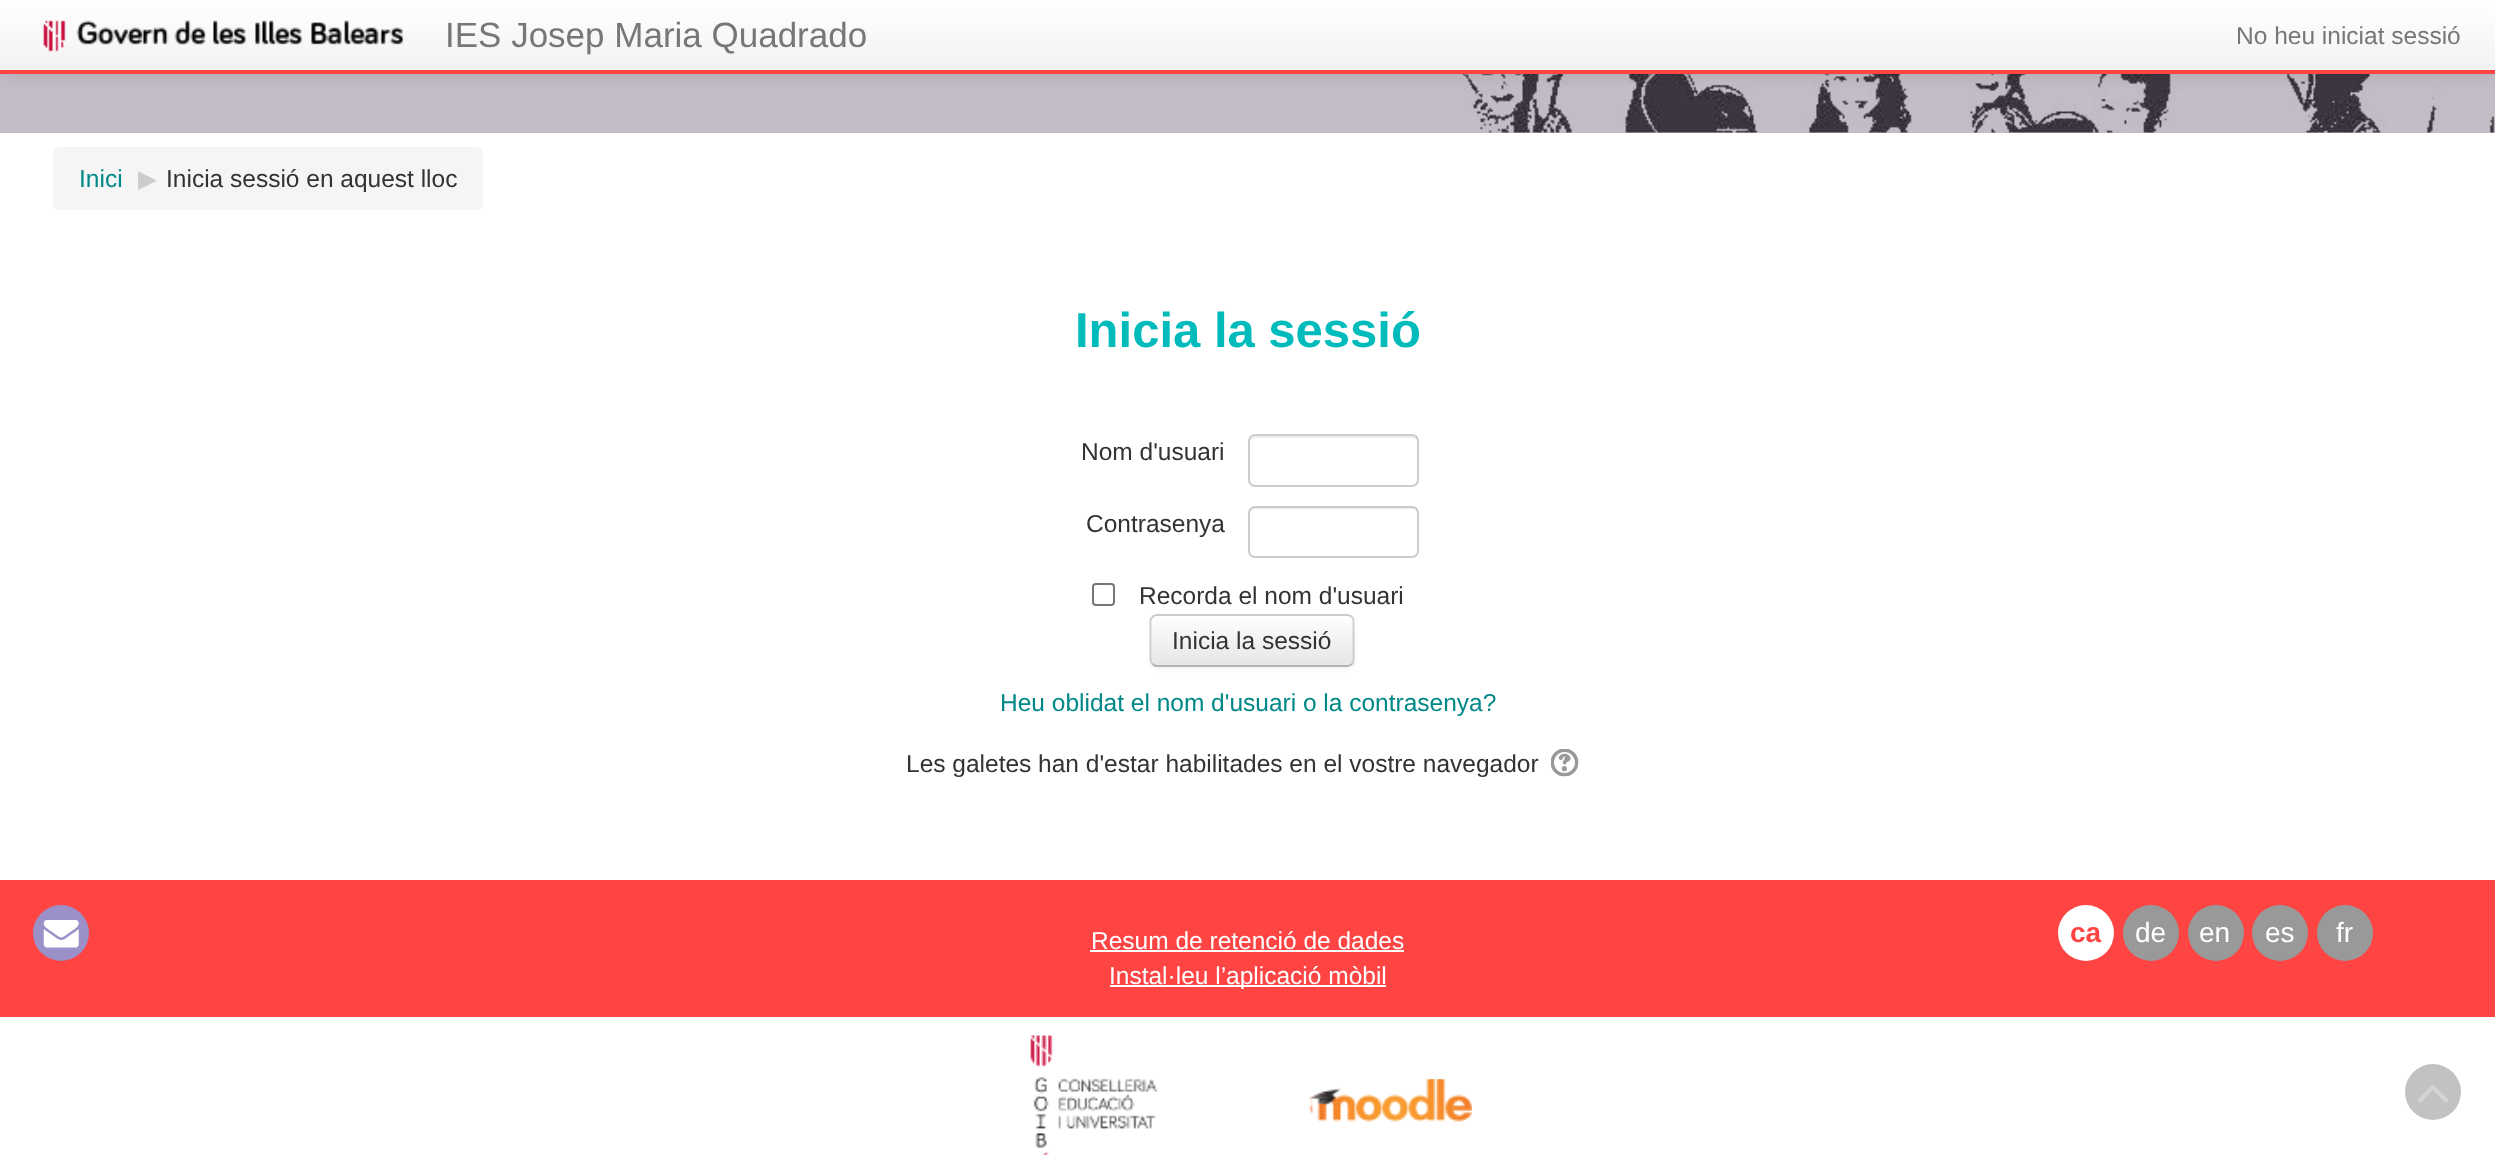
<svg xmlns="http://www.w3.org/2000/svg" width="2495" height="1155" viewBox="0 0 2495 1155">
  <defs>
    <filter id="blur1" x="-50%" y="-200%" width="200%" height="500%"><feGaussianBlur stdDeviation="9"/></filter>
    <linearGradient id="g1" gradientUnits="userSpaceOnUse" x1="1248" y1="0" x2="1248" y2="70"><stop offset="0" stop-color="#ffffff"/><stop offset="1" stop-color="#f2f2f2"/></linearGradient>
    <filter id="blur2" x="-50%" y="-200%" width="200%" height="500%"><feGaussianBlur stdDeviation="2"/></filter>
    <clipPath id="clip1"><rect x="1150" y="614" width="205" height="53" rx="7"/></clipPath>
    <linearGradient id="g2" gradientUnits="userSpaceOnUse" x1="1252" y1="616" x2="1252" y2="665"><stop offset="0" stop-color="#ffffff"/><stop offset="1" stop-color="#e6e6e6"/></linearGradient>
  </defs>
  <rect width="100%" height="100%" fill="#ffffff"/>
  <rect x="0" y="74" width="2495" height="59" fill="#c2bdc6"/>
  <image x="1463" y="74" width="1032" height="59" href="img2.png"/>
  <rect x="0" y="2" width="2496" height="73" fill="#000000" fill-opacity="0.1" filter="url(#blur1)"/>
  <rect x="0" y="0" width="2495" height="70" fill="url(#g1)"/>
  <rect x="0" y="70" width="2495" height="4" fill="#ff4444"/>
  <image x="43" y="20" width="362" height="32" href="img1.png"/>
  <text x="445" y="47" font-family="Liberation Sans" font-size="35" fill="#777777">IES Josep Maria Quadrado</text>
  <text x="2236" y="44" font-family="Liberation Sans" font-size="24.5" fill="#777777">No heu iniciat sessió</text>
  <rect x="53" y="147" width="430" height="63" rx="7" fill="#f5f5f5"/>
  <text x="79" y="187" font-family="Liberation Sans" font-size="24.5" fill="#008888">Inici</text>
  <text x="138" y="187" font-family="DejaVu Sans" font-size="24.5" fill="#cccccc">▶︎</text>
  <text x="166" y="187" font-family="Liberation Sans" font-size="24.5" fill="#333333">Inicia sessió en aquest lloc</text>
  <text x="1075" y="347" font-family="Liberation Sans" font-size="49" font-weight="bold" fill="#00bbbb">Inicia la sessió</text>
  <text x="1081" y="460" font-family="Liberation Sans" font-size="24.5" fill="#333333">Nom d'usuari</text>
  <path d="M1255 438H1412C1415 438 1418 440 1418 443V441C1418 438 1416 436 1413 436H1255C1252 436 1250 438 1250 441V443C1250 440 1252 438 1255 438Z" fill="#ececec"/>
  <rect x="1249" y="435" width="169" height="51" rx="6" fill="none" stroke="#cccccc" stroke-width="2"/>
  <text x="1086" y="532" font-family="Liberation Sans" font-size="24.5" fill="#333333">Contrasenya</text>
  <path d="M1255 509H1412C1415 509 1418 512 1418 514V513C1418 510 1416 508 1413 508H1255C1252 508 1250 510 1250 513V514C1250 512 1252 509 1255 509Z" fill="#ececec"/>
  <rect x="1249" y="507" width="169" height="50" rx="6" fill="none" stroke="#cccccc" stroke-width="2"/>
  <rect x="1093" y="584" width="21" height="21" rx="3" fill="none" stroke="#767676" stroke-width="2"/>
  <text x="1139" y="604" font-family="Liberation Sans" font-size="24.5" fill="#333333">Recorda el nom d'usuari</text>
  <rect x="1150" y="616" width="205" height="53" rx="7" fill="#000000" fill-opacity="0.05" filter="url(#blur2)"/>
  <rect x="1150" y="614" width="205" height="53" rx="7" fill="#f5f5f5"/>
  <g clip-path="url(#clip1)">
    <rect x="1150" y="616" width="205" height="49" fill="url(#g2)"/>
  </g>
  <path d="M1352 664C1350.5 665 1349 666 1347.5 666H1157C1155 666 1153.5 665 1152.5 664" fill="none" stroke="#b3b3b3" stroke-width="1.8"/>
  <path d="M1152.5 664C1151.5 663 1150.5 661.5 1150.5 660V621C1150.5 619.5 1151.5 618 1152.5 617C1153.5 616 1155 615 1157 615H1347.5C1349 615 1350.5 616 1352 617C1353 618 1353.5 619.5 1353.5 621V660C1353.5 661.5 1353 663 1352 664" fill="none" stroke="#cccccc" stroke-width="1.8"/>
  <text x="1172" y="649" font-family="Liberation Sans" font-size="24.5" fill="#333333">Inicia la sessió</text>
  <text x="1000" y="711" font-family="Liberation Sans" font-size="24.5" fill="#008888">Heu oblidat el nom d'usuari o la contrasenya?</text>
  <text x="906" y="772" font-family="Liberation Sans" font-size="24.5" fill="#333333">Les galetes han d'estar habilitades en el vostre navegador</text>
  <image x="1551" y="749" width="28" height="28" href="img3.png"/>
  <rect x="0" y="880" width="2495" height="137" fill="#ff4444"/>
  <circle cx="61" cy="933" r="28" fill="#9b90c8"/>
  <image x="43" y="920" width="36" height="28" href="img4.png"/>
  <text x="1091" y="949" font-family="Liberation Sans" font-size="24.5" fill="#ffffff">Resum de retenció de dades</text>
  <rect x="1090" y="950" width="314" height="2" fill="#ffffff"/>
  <rect x="1110" y="985" width="276" height="2" fill="#ffffff"/>
  <text x="1109" y="984" font-family="Liberation Sans" font-size="24.5" fill="#ffffff">Instal·leu l’aplicació mòbil</text>
  <circle cx="2086" cy="933" r="28" fill="#ffffff"/>
  <text x="2070" y="942" font-family="Liberation Sans" font-size="28" font-weight="bold" fill="#ff4444">ca</text>
  <circle cx="2151" cy="933" r="28" fill="#999999"/>
  <text x="2135" y="942" font-family="Liberation Sans" font-size="28" fill="#ffffff">de</text>
  <circle cx="2216" cy="933" r="28" fill="#999999"/>
  <text x="2199" y="942" font-family="Liberation Sans" font-size="28" fill="#ffffff">en</text>
  <circle cx="2280" cy="933" r="28" fill="#999999"/>
  <text x="2265" y="942" font-family="Liberation Sans" font-size="28" fill="#ffffff">es</text>
  <circle cx="2345" cy="933" r="28" fill="#999999"/>
  <text x="2336" y="942" font-family="Liberation Sans" font-size="28" fill="#ffffff">fr</text>
  <image x="1030" y="1035" width="128" height="120" href="img5.png"/>
  <image x="1309" y="1079" width="163" height="43" href="img6.png"/>
  <circle cx="2433" cy="1092" r="28" fill="#c2c2c2"/>
  <image x="2417" y="1085" width="32" height="18" href="img7.png"/>
</svg>
